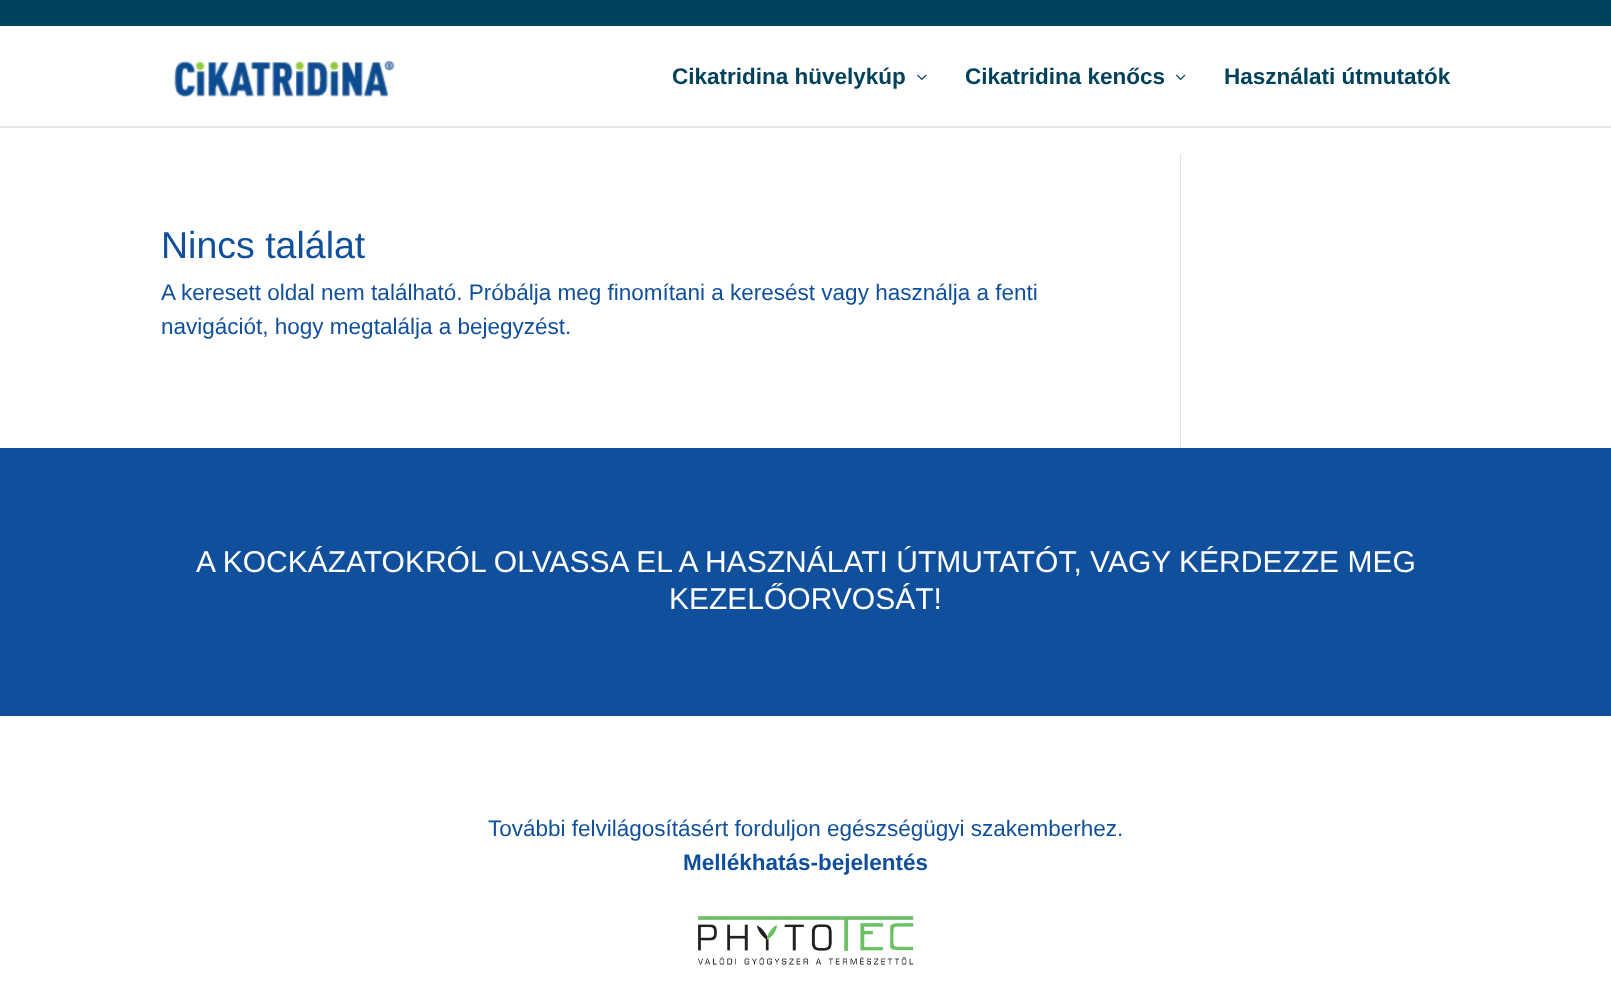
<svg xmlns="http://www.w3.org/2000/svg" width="1611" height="995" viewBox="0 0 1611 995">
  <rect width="100%" height="100%" fill="#ffffff"/>
  <rect x="0" y="0" width="1611" height="26" fill="#00415b"/>
  <rect x="0" y="126" width="1611" height="2" fill="#e6e6e6"/>
  <image x="174" y="60" width="221" height="37" href="img1.png"/>
  <text x="672" y="84" font-family="Liberation Sans" font-size="22.5" font-weight="bold" fill="#00415b">Cikatridina hüvelykúp</text>
  <image x="917" y="74" width="10" height="6" href="img2.png"/>
  <text x="965" y="84" font-family="Liberation Sans" font-size="22.5" font-weight="bold" fill="#00415b">Cikatridina kenőcs</text>
  <image x="1176" y="74" width="10" height="6" href="img3.png"/>
  <text x="1224" y="84" font-family="Liberation Sans" font-size="22.5" font-weight="bold" fill="#00415b">Használati útmutatók</text>
  <text x="161" y="258" font-family="Liberation Sans" font-size="37.5" fill="#0f4f9b">Nincs találat</text>
  <text x="161" y="300" font-family="Liberation Sans" font-size="22.5" fill="#0f4f9b">A keresett oldal nem található. Próbálja meg finomítani a keresést vagy használja a fenti</text>
  <text x="161" y="334" font-family="Liberation Sans" font-size="22.5" fill="#0f4f9b">navigációt, hogy megtalálja a bejegyzést.</text>
  <rect x="1180" y="154" width="1" height="294" fill="#e2e2e2"/>
  <rect x="0" y="448" width="1611" height="268" fill="#0f4f9b"/>
  <text x="196" y="572" font-family="Liberation Sans" font-size="30" fill="#ffffff">A KOCKÁZATOKRÓL OLVASSA EL A HASZNÁLATI ÚTMUTATÓT, VAGY KÉRDEZZE MEG</text>
  <text x="669" y="609" font-family="Liberation Sans" font-size="30" fill="#ffffff">KEZELŐORVOSÁT!</text>
  <text x="488" y="836" font-family="Liberation Sans" font-size="22.5" fill="#0f4f9b">További felvilágosításért forduljon egészségügyi szakemberhez.</text>
  <text x="683" y="870" font-family="Liberation Sans" font-size="22.5" font-weight="bold" fill="#0f4f9b">Mellékhatás-bejelentés</text>
  <image x="698" y="916" width="216" height="49" href="img4.png"/>
</svg>
